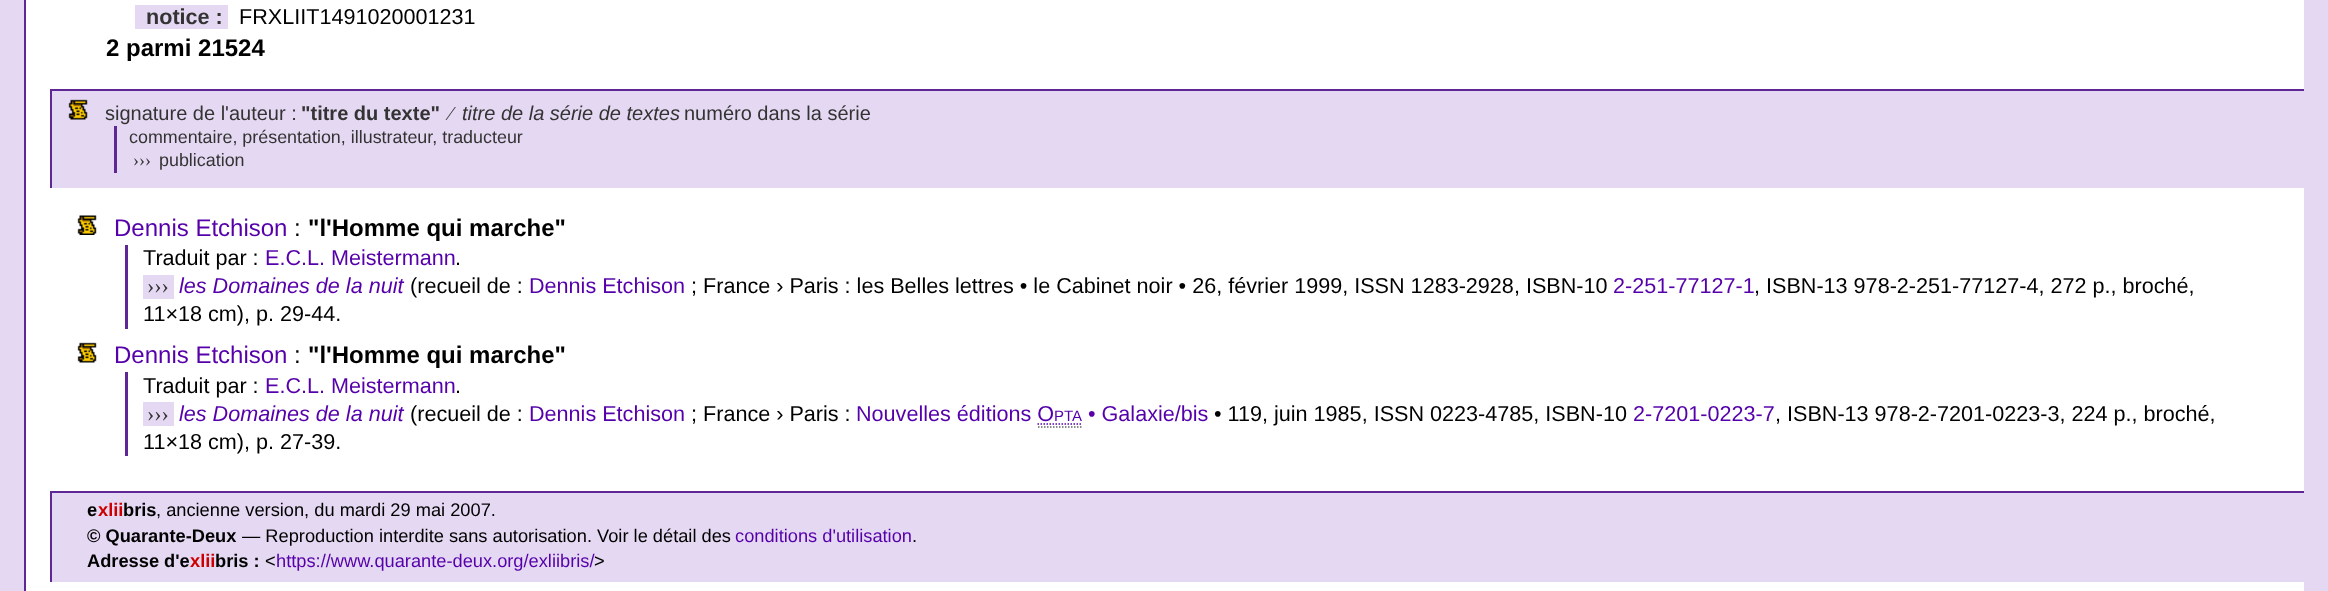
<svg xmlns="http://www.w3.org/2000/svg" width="2328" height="591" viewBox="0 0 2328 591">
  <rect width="100%" height="100%" fill="#e5d8f2"/>
  <rect x="26" y="0" width="2278" height="591" fill="#ffffff"/>
  <rect x="24" y="0" width="2" height="591" fill="#5e2795"/>
  <rect x="135" y="5" width="93" height="24" fill="#e5d8f2"/>
  <text x="146" y="24" font-family="Liberation Sans" font-size="21.6" font-weight="bold" fill="#333333">notice :</text>
  <text x="239" y="24" font-family="Liberation Sans" font-size="21.6" fill="#000000">FRXLIIT1491020001231</text>
  <text x="106" y="56" font-family="Liberation Sans" font-size="24" font-weight="bold" fill="#000000">2 parmi 21524</text>
  <rect x="52" y="91" width="2252" height="97" fill="#e5d8f2"/>
  <rect x="50" y="89" width="2254" height="2" fill="#5e2795"/>
  <rect x="50" y="89" width="2" height="99" fill="#5e2795"/>
  <image x="68" y="99" width="20" height="21" href="img1.png"/>
  <text x="105" y="120" font-family="Liberation Sans" font-size="20" fill="#333333">signature de l'auteur :</text>
  <text x="301" y="120" font-family="Liberation Sans" font-size="20" font-weight="bold" fill="#333333">"titre du texte"</text>
  <text x="449" y="120" font-family="Liberation Serif" font-size="20" fill="#333333">⁄</text>
  <text x="462" y="120" font-family="Liberation Sans" font-size="20" font-style="italic" fill="#333333">titre de la série de textes</text>
  <text x="684" y="120" font-family="Liberation Sans" font-size="20" fill="#333333">numéro dans la série</text>
  <rect x="114" y="126" width="3" height="47" fill="#5e2795"/>
  <text x="129" y="143" font-family="Liberation Sans" font-size="17.9" fill="#333333">commentaire, présentation, illustrateur, traducteur</text>
  <text x="133" y="166" font-family="Liberation Serif" font-size="17.9" fill="#333333">›››</text>
  <text x="159" y="166" font-family="Liberation Sans" font-size="17.9" fill="#333333">publication</text>
  <image x="77" y="215" width="20" height="20" href="img2.png"/>
  <text x="114" y="236" font-family="Liberation Sans" font-size="24" fill="#5500aa">Dennis Etchison</text>
  <text x="294" y="236" font-family="Liberation Sans" font-size="24" fill="#000000">:</text>
  <text x="308" y="236" font-family="Liberation Sans" font-size="24" font-weight="bold" fill="#000000">"l'Homme qui marche"</text>
  <rect x="125" y="245" width="3" height="84" fill="#5e2795"/>
  <text x="143" y="265" font-family="Liberation Sans" font-size="21.6" fill="#000000">Traduit par :</text>
  <text x="265" y="265" font-family="Liberation Sans" font-size="21.6" fill="#5500aa">E.C.L. Meistermann</text>
  <text x="455" y="265" font-family="Liberation Sans" font-size="21.6" fill="#000000">.</text>
  <rect x="143" y="275" width="31" height="24" fill="#e5d8f2"/>
  <text x="147" y="293" font-family="Liberation Serif" font-size="21.6" fill="#333333">›››</text>
  <text x="179" y="293" font-family="Liberation Sans" font-size="21.6" font-style="italic" fill="#5500aa">les Domaines de la nuit</text>
  <text x="410" y="293" font-family="Liberation Sans" font-size="21.6" fill="#000000">(recueil de :</text>
  <text x="529" y="293" font-family="Liberation Sans" font-size="21.6" fill="#5500aa">Dennis Etchison</text>
  <text x="691" y="293" font-family="Liberation Sans" font-size="21.6" fill="#000000">; France › Paris : les Belles lettres • le Cabinet noir • 26, février 1999, ISSN 1283-2928, ISBN-10</text>
  <text x="1613" y="293" font-family="Liberation Sans" font-size="21.6" fill="#5500aa">2-251-77127-1</text>
  <text x="1754" y="293" font-family="Liberation Sans" font-size="21.6" fill="#000000">, ISBN-13 978-2-251-77127-4, 272 p., broché,</text>
  <text x="143" y="321" font-family="Liberation Sans" font-size="21.6" fill="#000000">11×18 cm), p. 29-44.</text>
  <image x="77" y="342" width="20" height="21" href="img3.png"/>
  <text x="114" y="363" font-family="Liberation Sans" font-size="24" fill="#5500aa">Dennis Etchison</text>
  <text x="294" y="363" font-family="Liberation Sans" font-size="24" fill="#000000">:</text>
  <text x="308" y="363" font-family="Liberation Sans" font-size="24" font-weight="bold" fill="#000000">"l'Homme qui marche"</text>
  <rect x="125" y="372" width="3" height="84" fill="#5e2795"/>
  <text x="143" y="393" font-family="Liberation Sans" font-size="21.6" fill="#000000">Traduit par :</text>
  <text x="265" y="393" font-family="Liberation Sans" font-size="21.6" fill="#5500aa">E.C.L. Meistermann</text>
  <text x="455" y="393" font-family="Liberation Sans" font-size="21.6" fill="#000000">.</text>
  <rect x="143" y="402" width="31" height="24" fill="#e5d8f2"/>
  <text x="147" y="421" font-family="Liberation Serif" font-size="21.6" fill="#333333">›››</text>
  <text x="179" y="421" font-family="Liberation Sans" font-size="21.6" font-style="italic" fill="#5500aa">les Domaines de la nuit</text>
  <text x="410" y="421" font-family="Liberation Sans" font-size="21.6" fill="#000000">(recueil de :</text>
  <text x="529" y="421" font-family="Liberation Sans" font-size="21.6" fill="#5500aa">Dennis Etchison</text>
  <text x="691" y="421" font-family="Liberation Sans" font-size="21.6" fill="#000000">; France › Paris :</text>
  <text x="856" y="421" font-family="Liberation Sans" font-size="21.6" fill="#5500aa">Nouvelles éditions O</text>
  <text x="1054" y="421" font-family="Liberation Sans" font-size="15" fill="#5500aa">PTA</text>
  <path d="M1038 427H1081.5" fill="none" stroke="#666666" stroke-width="1.5" stroke-dasharray="1.5 1.5"/>
  <path d="M1037.5 424H1082" fill="none" stroke="#5500aa" stroke-width="1.5" stroke-dasharray="1.5 1.5"/>
  <text x="1088" y="421" font-family="Liberation Sans" font-size="21.6" fill="#5500aa">• Galaxie/bis</text>
  <text x="1214" y="421" font-family="Liberation Sans" font-size="21.6" fill="#000000">• 119, juin 1985, ISSN 0223-4785, ISBN-10</text>
  <text x="1633" y="421" font-family="Liberation Sans" font-size="21.6" fill="#5500aa">2-7201-0223-7</text>
  <text x="1775" y="421" font-family="Liberation Sans" font-size="21.6" fill="#000000">, ISBN-13 978-2-7201-0223-3, 224 p., broché,</text>
  <text x="143" y="449" font-family="Liberation Sans" font-size="21.6" fill="#000000">11×18 cm), p. 27-39.</text>
  <rect x="52" y="493" width="2252" height="89" fill="#e5d8f2"/>
  <rect x="50" y="491" width="2254" height="2" fill="#5e2795"/>
  <rect x="50" y="491" width="2" height="91" fill="#5e2795"/>
  <text x="87" y="516" font-family="Liberation Sans" font-size="18.25" font-weight="bold" fill="#000000">e</text>
  <text x="98" y="516" font-family="Liberation Sans" font-size="18.25" font-weight="bold" fill="#cc0000">xlii</text>
  <text x="123" y="516" font-family="Liberation Sans" font-size="18.25" font-weight="bold" fill="#000000">bris</text>
  <text x="156" y="516" font-family="Liberation Sans" font-size="18.25" fill="#000000">, ancienne version, du mardi 29 mai 2007.</text>
  <text x="87" y="542" font-family="Liberation Sans" font-size="18.25" font-weight="bold" fill="#000000">© Quarante-Deux</text>
  <text x="242" y="542" font-family="Liberation Sans" font-size="18.25" fill="#000000">— Reproduction interdite sans autorisation. Voir le détail des</text>
  <text x="735" y="542" font-family="Liberation Sans" font-size="18.25" fill="#5500aa">conditions d'utilisation</text>
  <text x="912" y="542" font-family="Liberation Sans" font-size="18.25" fill="#000000">.</text>
  <text x="87" y="567" font-family="Liberation Sans" font-size="18.25" font-weight="bold" fill="#000000">Adresse d'e</text>
  <text x="190" y="567" font-family="Liberation Sans" font-size="18.25" font-weight="bold" fill="#cc0000">xlii</text>
  <text x="215" y="567" font-family="Liberation Sans" font-size="18.25" font-weight="bold" fill="#000000">bris :</text>
  <text x="265" y="567" font-family="Liberation Sans" font-size="18.25" fill="#000000">&lt;</text>
  <text x="276" y="567" font-family="Liberation Sans" font-size="18.25" fill="#5500aa">https://www.quarante-deux.org/exliibris/</text>
  <text x="594" y="567" font-family="Liberation Sans" font-size="18.25" fill="#000000">&gt;</text>
</svg>
